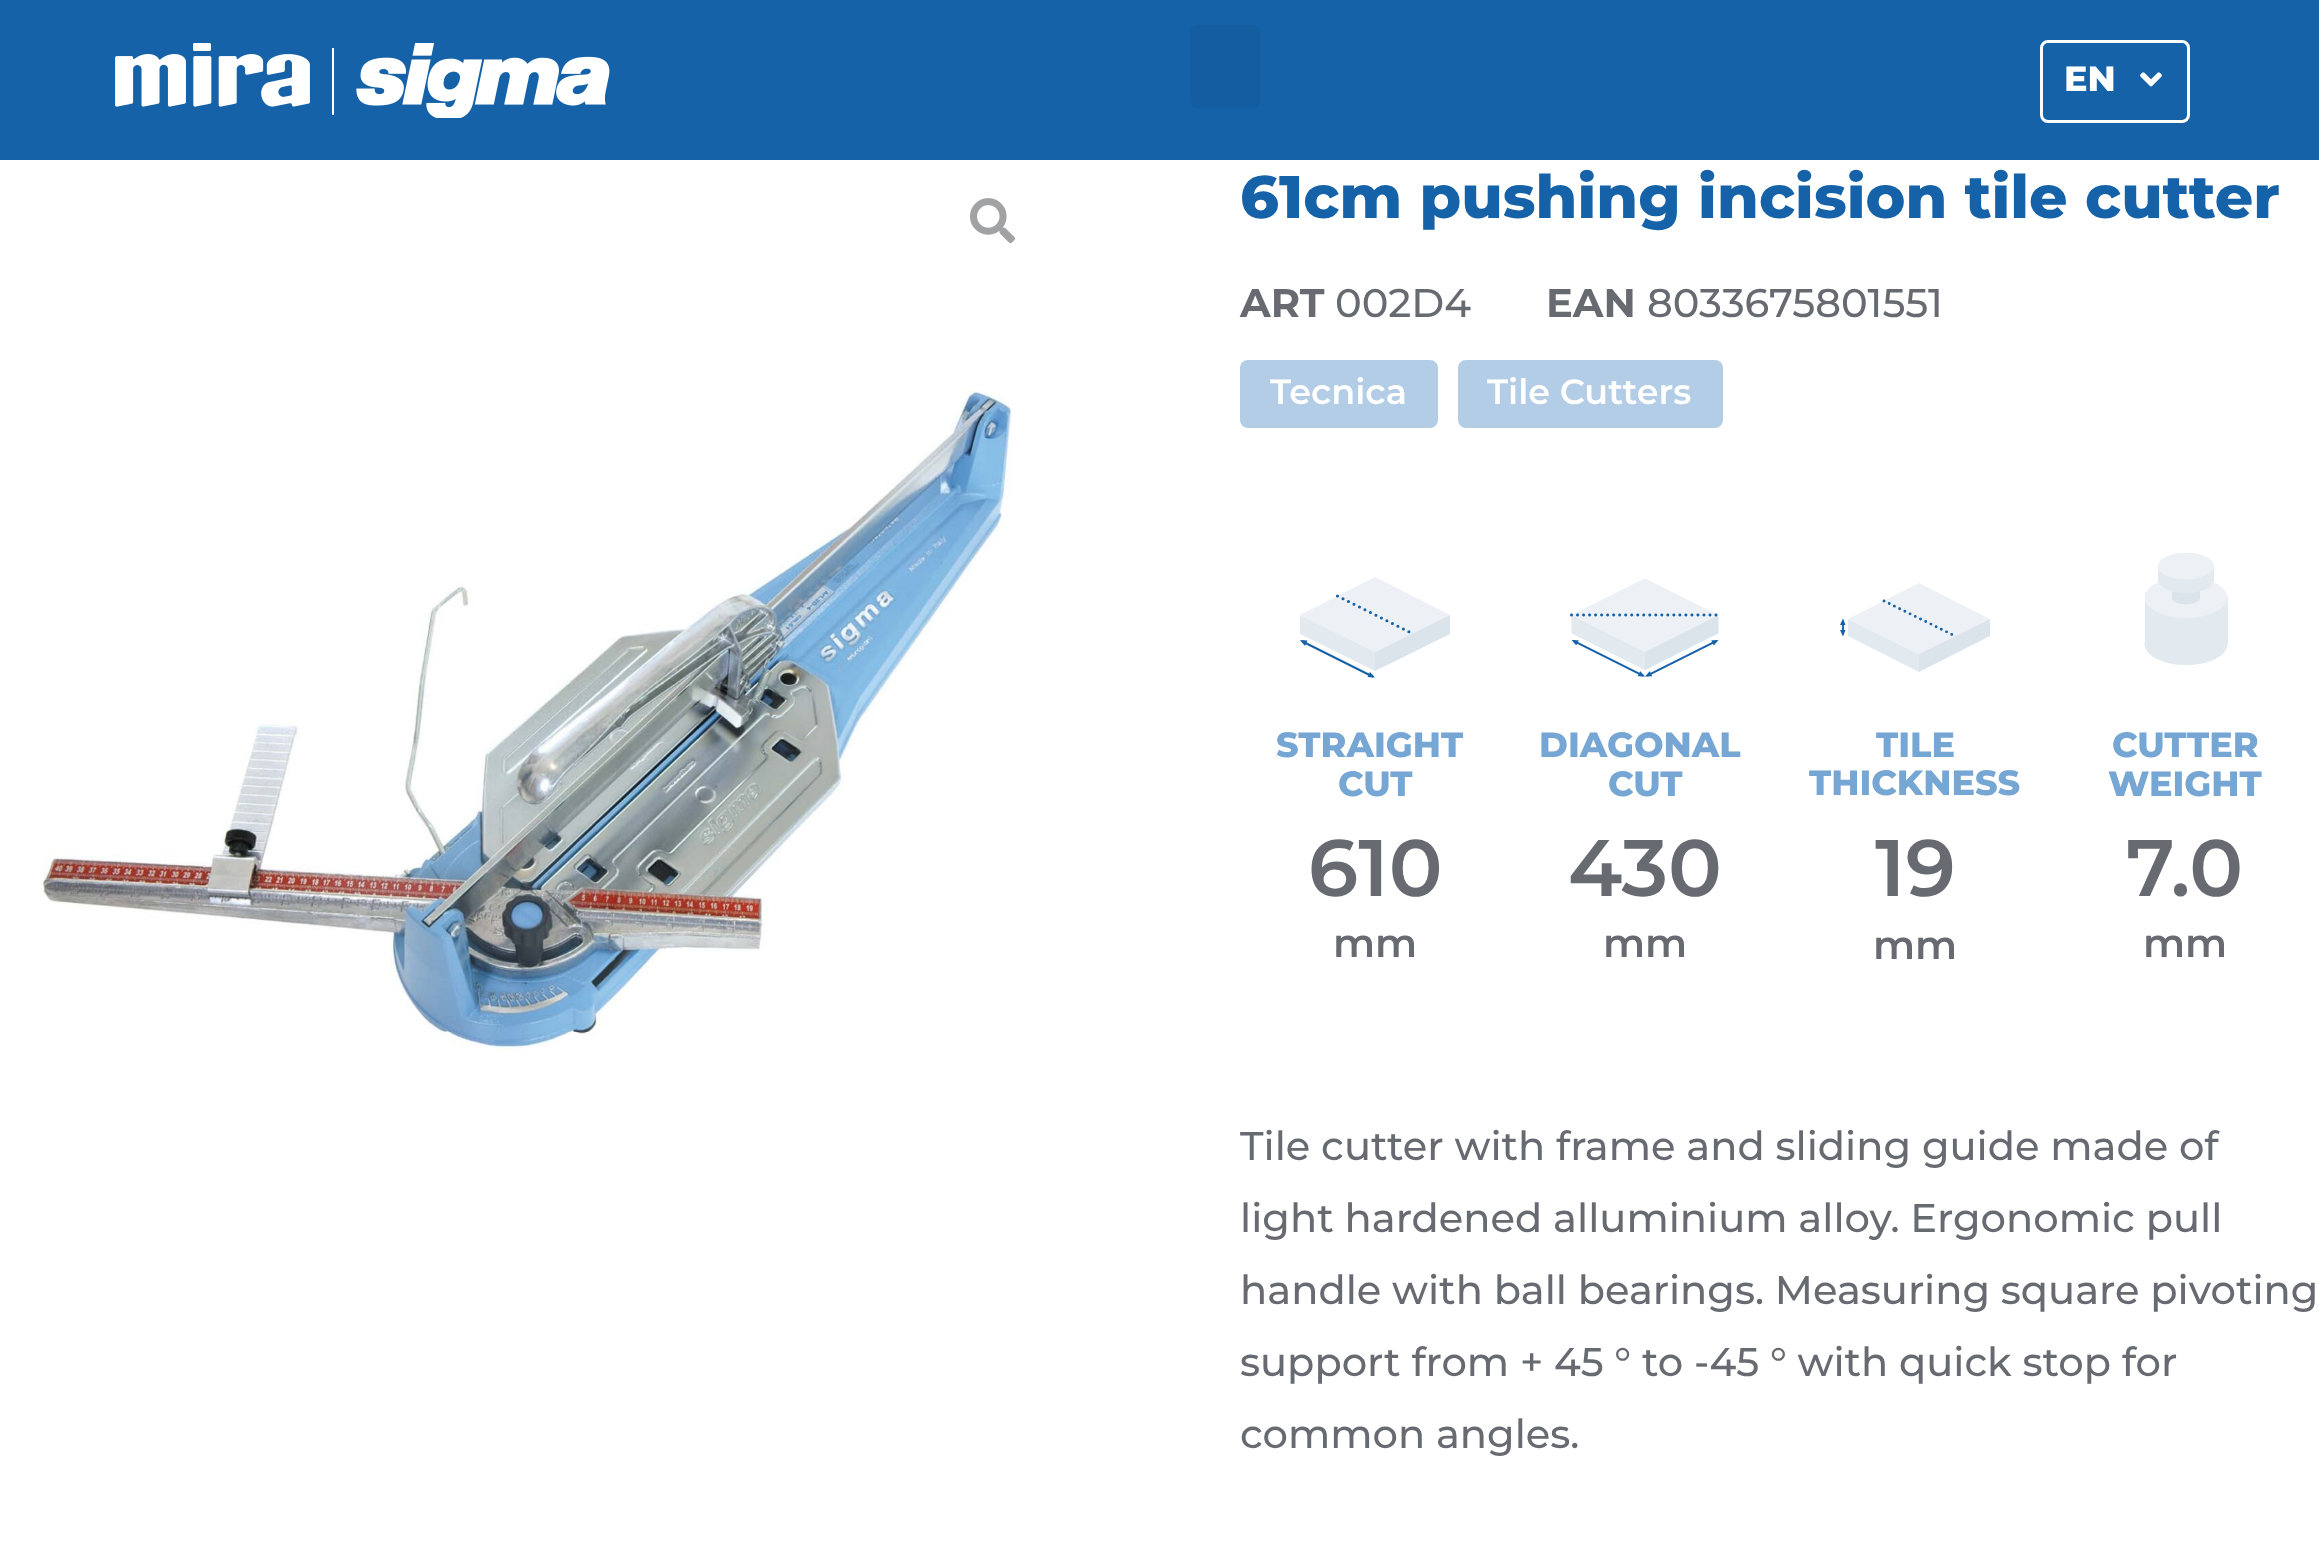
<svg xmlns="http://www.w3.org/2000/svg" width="2319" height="1567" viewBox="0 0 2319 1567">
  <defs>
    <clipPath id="clip1"><rect x="2130" y="553" width="113" height="112"/></clipPath>
  </defs>
  <rect width="100%" height="100%" fill="#ffffff"/>
  <rect x="0" y="0" width="2319" height="160" fill="#1562a8"/>
  <image x="115" y="43" width="495" height="75" href="img1.png"/>
  <rect x="1190" y="25" width="70" height="83" rx="8" fill="#145da0"/>
  <rect x="2041.5" y="41.5" width="147" height="80" rx="6.5" fill="none" stroke="#ffffff" stroke-width="3"/>
  <text x="2064" y="91" font-family="Montserrat" font-size="35" font-weight="800" fill="#ffffff">EN</text>
  <image x="2140" y="72" width="22" height="15" href="img2.png"/>
  <image x="970" y="198" width="45" height="46" href="img3.png"/>
  <image x="39" y="390" width="973" height="662" href="img4.png"/>
  <text x="1240" y="218" font-family="Montserrat" font-size="60" font-weight="800" fill="#1562a8">61cm pushing incision tile cutter</text>
  <text x="1240" y="317" font-family="Montserrat" font-size="40" font-weight="bold" fill="#676b71">ART</text>
  <text x="1335" y="317" font-family="Montserrat" font-size="40" font-weight="500" fill="#676b71">002D4</text>
  <text x="1546" y="317" font-family="Montserrat" font-size="40" font-weight="bold" fill="#676b71">EAN</text>
  <text x="1647" y="317" font-family="Montserrat" font-size="40" font-weight="500" fill="#676b71">8033675801551</text>
  <rect x="1240" y="360" width="198" height="68" rx="8" fill="#b3cde6"/>
  <text x="1270" y="404" font-family="Montserrat" font-size="35" font-weight="600" fill="#ffffff">Tecnica</text>
  <rect x="1458" y="360" width="265" height="68" rx="8" fill="#b3cde6"/>
  <text x="1487" y="404" font-family="Montserrat" font-size="35" font-weight="600" fill="#ffffff">Tile Cutters</text>
  <path d="M1300 615L1375 652V671L1300 634Z" fill="#e2e9ef"/>
  <path d="M1375 577L1450 615L1375 652L1300 615Z" fill="#edf1f5"/>
  <path d="M1450 615L1375 652V671L1450 634Z" fill="#dbe3eb"/>
  <path d="M1337.5 596L1412.5 633.5" fill="none" stroke="#1562a8" stroke-width="3.1" stroke-linecap="round" stroke-linejoin="round" stroke-dasharray="0 6.14"/>
  <path d="M1372.5 676.5L1302.5 641.5" fill="none" stroke="#1562a8" stroke-width="2" stroke-linecap="round" stroke-linejoin="round"/>
  <path d="M1300 640L1307.5 640.5L1305 646Z" fill="#1562a8"/>
  <path d="M1370 672L1375 677.5L1367.5 677Z" fill="#1562a8"/>
  <text x="1276" y="757" font-family="Montserrat" font-size="35" font-weight="800" fill="#76a6d3">STRAIGHT</text>
  <text x="1338" y="796" font-family="Montserrat" font-size="35" font-weight="800" fill="#76a6d3">CUT</text>
  <text x="1308" y="896" font-family="Montserrat" font-size="80" font-weight="600" fill="#676b71">610</text>
  <text x="1333" y="957" font-family="Montserrat" font-size="40" font-weight="600" fill="#676b71">mm</text>
  <image x="1570" y="578" width="149" height="99" href="img5.png"/>
  <text x="1539" y="757" font-family="Montserrat" font-size="35" font-weight="800" fill="#76a6d3">DIAGONAL</text>
  <text x="1608" y="796" font-family="Montserrat" font-size="35" font-weight="800" fill="#76a6d3">CUT</text>
  <text x="1568" y="896" font-family="Montserrat" font-size="80" font-weight="600" fill="#676b71">430</text>
  <text x="1603" y="957" font-family="Montserrat" font-size="40" font-weight="600" fill="#676b71">mm</text>
  <path d="M1848 619L1919 654V672L1848 636Z" fill="#e2e9ef"/>
  <path d="M1919 583L1990 619L1919 654L1848 619Z" fill="#edf1f5"/>
  <path d="M1990 619L1919 654V672L1990 636Z" fill="#dbe3eb"/>
  <path d="M1843 633.5V621.5" fill="none" stroke="#1562a8" stroke-width="1.9" stroke-linecap="round" stroke-linejoin="round"/>
  <path d="M1884 601L1955 636" fill="none" stroke="#1562a8" stroke-width="2.9" stroke-linecap="round" stroke-dasharray="0 5.81"/>
  <path d="M1843 618.5L1845.5 625H1840ZM1843 636.5L1840 630H1845.5Z" fill="#1562a8"/>
  <text x="1876" y="757" font-family="Montserrat" font-size="35" font-weight="800" fill="#76a6d3">TILE</text>
  <text x="1809" y="795" font-family="Montserrat" font-size="35" font-weight="800" fill="#76a6d3">THICKNESS</text>
  <text x="1875" y="896" font-family="Montserrat" font-size="80" font-weight="600" fill="#676b71">19</text>
  <text x="1873" y="959" font-family="Montserrat" font-size="40" font-weight="600" fill="#676b71">mm</text>
  <ellipse cx="2186" cy="644.5" rx="41.5" ry="20.5" fill="#e2e9ef"/>
  <rect x="2145" y="597" width="83" height="48" fill="#e2e9ef"/>
  <ellipse cx="2186" cy="597.5" rx="41.5" ry="20.5" fill="#edf1f5"/>
  <ellipse cx="2186" cy="597.5" rx="14" ry="7" fill="#dbe3eb"/>
  <rect x="2172" y="591" width="28" height="6" fill="#dbe3eb"/>
  <ellipse cx="2186" cy="579.5" rx="28" ry="13.5" fill="#e2e9ef"/>
  <rect x="2158" y="566" width="56" height="13" fill="#e2e9ef"/>
  <g clip-path="url(#clip1)">
    <ellipse cx="2186" cy="566" rx="28" ry="13.5" fill="#edf1f5"/>
  </g>
  <text x="2112" y="757" font-family="Montserrat" font-size="35" font-weight="800" fill="#76a6d3">CUTTER</text>
  <text x="2108" y="796" font-family="Montserrat" font-size="35" font-weight="800" fill="#76a6d3">WEIGHT</text>
  <text x="2126" y="896" font-family="Montserrat" font-size="80" font-weight="600" fill="#676b71">7.0</text>
  <text x="2143" y="957" font-family="Montserrat" font-size="40" font-weight="600" fill="#676b71">mm</text>
  <text x="1240" y="1160" font-family="Montserrat" font-size="40" font-weight="500" fill="#676b71">Tile cutter with frame and sliding guide made of</text>
  <text x="1240" y="1232" font-family="Montserrat" font-size="40" font-weight="500" fill="#676b71">light hardened alluminium alloy. Ergonomic pull</text>
  <text x="1240" y="1304" font-family="Montserrat" font-size="40" font-weight="500" fill="#676b71">handle with ball bearings. Measuring square pivoting</text>
  <text x="1240" y="1376" font-family="Montserrat" font-size="40" font-weight="500" fill="#676b71">support from + 45 ° to -45 ° with quick stop for</text>
  <text x="1240" y="1448" font-family="Montserrat" font-size="40" font-weight="500" fill="#676b71">common angles.</text>
</svg>
